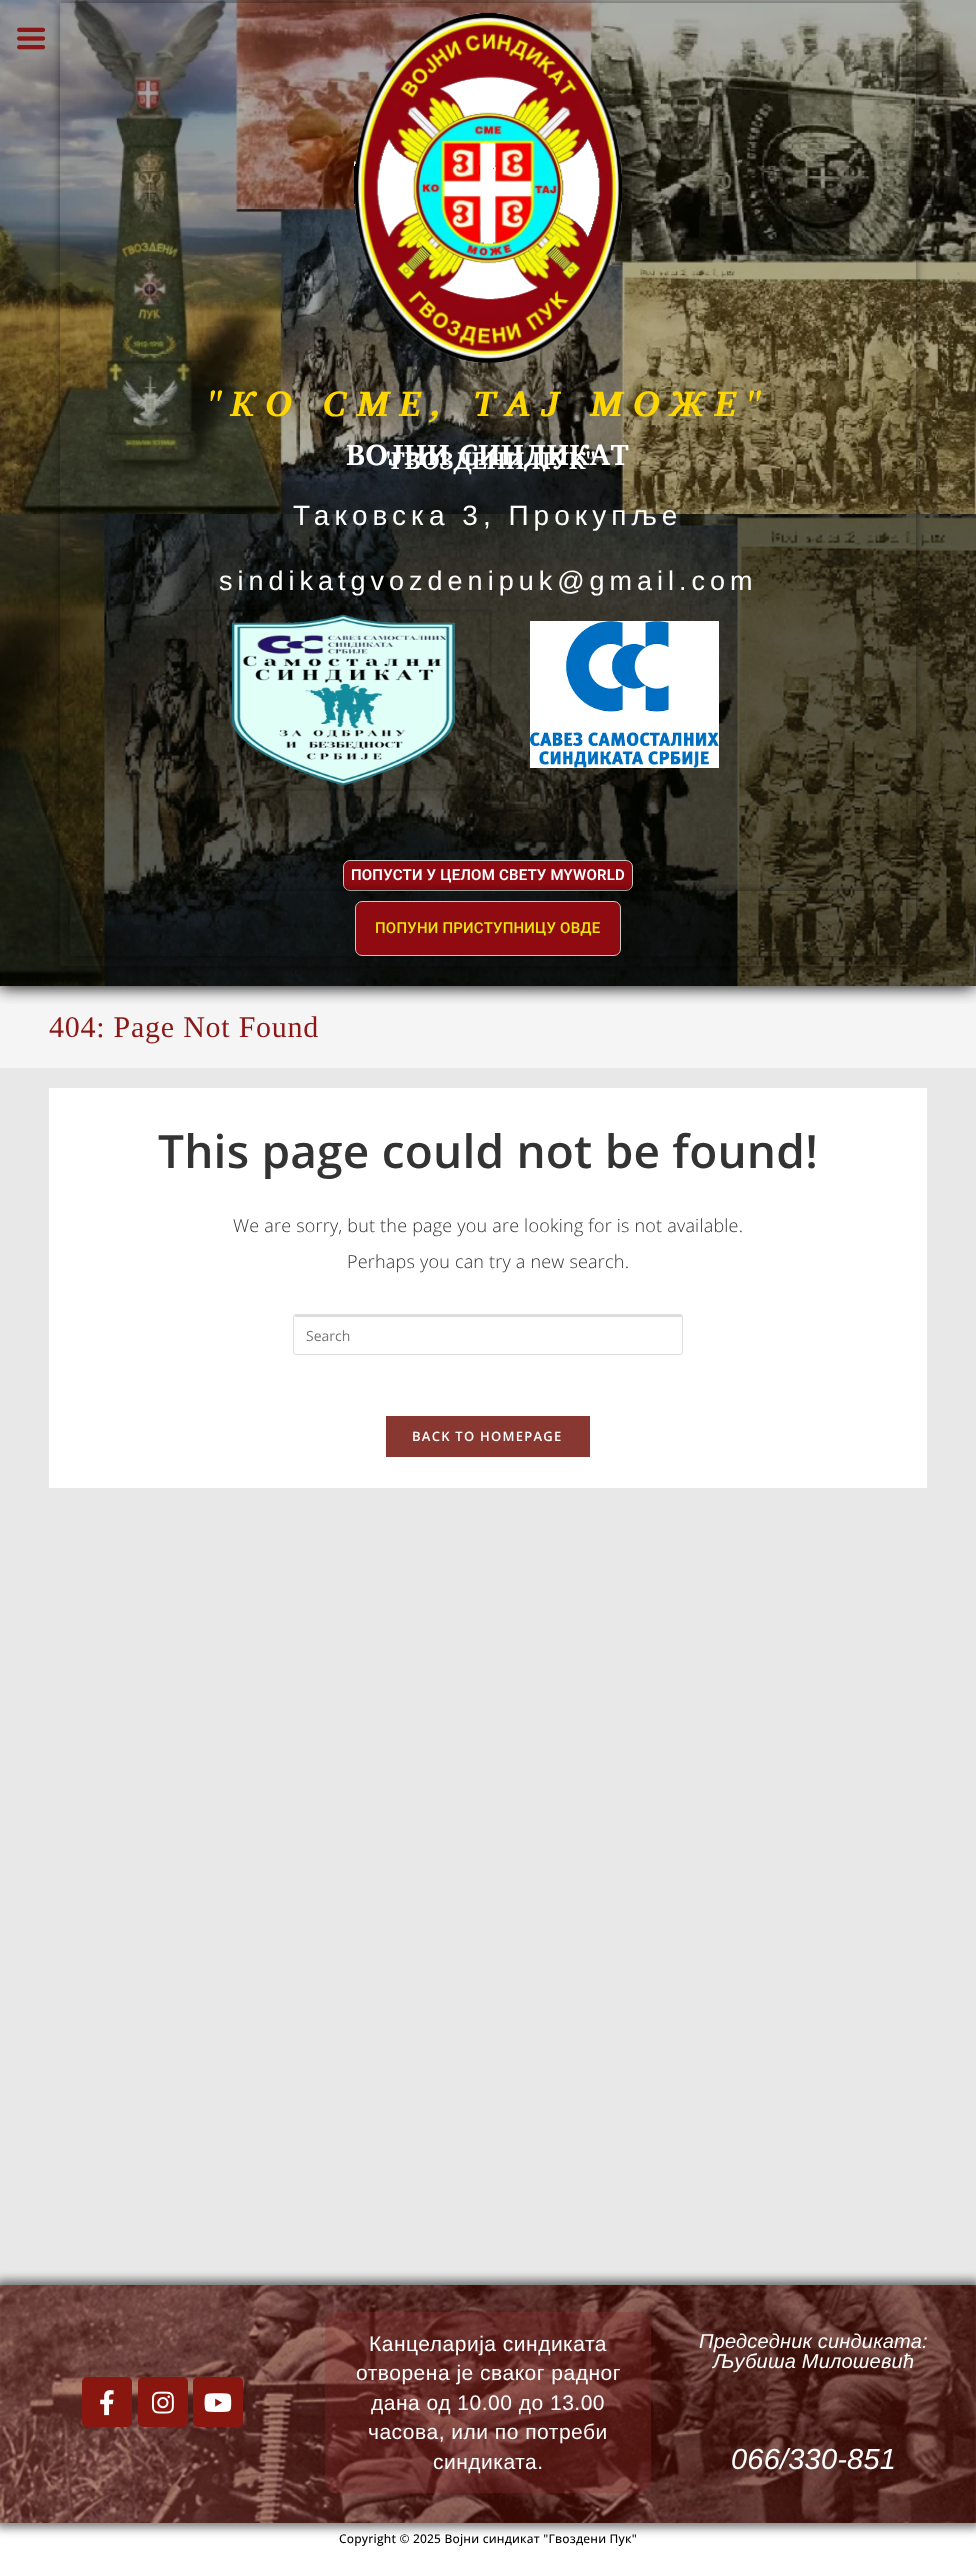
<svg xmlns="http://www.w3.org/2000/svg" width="976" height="2555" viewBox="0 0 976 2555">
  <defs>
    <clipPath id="clip1"><rect x="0" y="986" width="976" height="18"/></clipPath>
    <filter id="blur1" x="-50%" y="-200%" width="200%" height="500%"><feGaussianBlur stdDeviation="8.5"/></filter>
    <clipPath id="clip2"><path d="M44 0H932V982H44ZM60 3H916V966H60Z" clip-rule="evenodd"/></clipPath>
    <filter id="blur2" x="-50%" y="-200%" width="200%" height="500%"><feGaussianBlur stdDeviation="5"/></filter>
    <clipPath id="clip3"><path d="M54 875H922V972H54ZM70 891H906V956H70Z" clip-rule="evenodd"/></clipPath>
  </defs>
  <rect width="100%" height="100%" fill="#e8e8e8"/>
  <image x="0" y="514" width="976" height="472" href="img2.png"/>
  <rect x="0" y="986" width="976" height="82" fill="#f5f5f5"/>
  <g clip-path="url(#clip1)">
    <rect x="-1" y="-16" width="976" height="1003" fill="#000000" filter="url(#blur1)"/>
  </g>
  <image x="0" y="0" width="976" height="514" href="img3.png"/>
  <g clip-path="url(#clip2)">
    <rect x="60" y="3" width="856" height="963" fill="#000000" fill-opacity="0.5" filter="url(#blur2)"/>
  </g>
  <image x="17" y="27" width="29" height="23" href="img1.png"/>
  <image x="354" y="13" width="268" height="350" href="img4.png"/>
  <text x="207" y="416" font-family="Charis SIL" font-size="36" font-weight="bold" font-style="italic" letter-spacing="10" fill="#ffd700">"КО СМЕ, ТАJ МОЖЕ"</text>
  <text x="346" y="465" font-family="Charis SIL" font-size="30" font-weight="bold" letter-spacing="0.2" fill="#ffffff">ВОЈНИ СИНДИКАТ</text>
  <text x="381" y="469" font-family="Charis SIL" font-size="25" font-weight="bold" letter-spacing="-0.1" fill="#ffffff">"ГВОЗДЕНИ ПУК"</text>
  <text x="293" y="525" font-family="Liberation Sans" font-size="28" letter-spacing="5" fill="#ffffff">Таковска 3, Прокупље</text>
  <text x="219" y="590" font-family="Liberation Sans" font-size="27" letter-spacing="5" fill="#ffffff">sindikatgvozdenipuk@gmail.com</text>
  <rect x="196.5" y="610.5" width="294" height="179" fill="none" stroke="#020101" stroke-opacity="0.12" stroke-width="3"/>
  <image x="231" y="614" width="224" height="172" href="img5.png"/>
  <image x="530" y="621" width="189" height="147" href="img6.png"/>
  <rect x="343.5" y="860.5" width="289" height="30" rx="6.5" fill="#900a11" stroke="#ccc9c9"/>
  <text x="351" y="880" font-family="Roboto" font-size="15" font-weight="600" letter-spacing="0.2" fill="#ffffff">ПОПУСТИ У ЦЕЛОМ СВЕТУ MYWORLD</text>
  <g clip-path="url(#clip3)">
    <rect x="70" y="891" width="836" height="65" fill="#000000" fill-opacity="0.5" filter="url(#blur2)"/>
  </g>
  <rect x="355.5" y="901.5" width="265" height="54" rx="6.5" fill="#900a11" stroke="#c9c9c9"/>
  <text x="375" y="933" font-family="Roboto" font-size="15" font-weight="500" letter-spacing="0.2" fill="#ebe60c">ПОПУНИ ПРИСТУПНИЦУ ОВДЕ</text>
  <text x="49" y="1037" font-family="Liberation Serif" font-size="30" letter-spacing="0.75" fill="#8c1717">404: Page Not Found</text>
  <rect x="49" y="1088" width="878" height="400" fill="#ffffff"/>
  <text x="158" y="1168" font-family="Open Sans" font-size="46" font-weight="600" letter-spacing="0.2" fill="#333333">This page could not be found!</text>
  <text x="233" y="1232" font-family="Open Sans" font-size="18" font-weight="300" letter-spacing="0.2" fill="#333333">We are sorry, but the page you are looking for is not available.</text>
  <text x="347" y="1268" font-family="Open Sans" font-size="18" font-weight="300" letter-spacing="0.2" fill="#333333">Perhaps you can try a new search.</text>
  <rect x="293.5" y="1314.5" width="389" height="40" rx="2.5" fill="none" stroke="#dddddd"/>
  <rect x="295" y="1315" width="387" height="2" fill="#dddddd"/>
  <text x="306" y="1341" font-family="Open Sans" font-size="14" fill="#757575">Search</text>
  <rect x="386" y="1416" width="204" height="41" fill="#893731"/>
  <text x="412" y="1441" font-family="Open Sans" font-size="13" font-weight="600" letter-spacing="1.25" fill="#ffffff">BACK TO HOMEPAGE</text>
  <rect x="0" y="2523" width="976" height="32" fill="#ffffff"/>
  <rect x="-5" y="2280" width="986" height="248" rx="6" fill="#000000" fill-opacity="0.5" filter="url(#blur2)"/>
  <image x="0" y="2285" width="976" height="238" href="img7.png"/>
  <rect x="0" y="2285" width="976" height="238" rx="1" fill="#6b1304" fill-opacity="0.5"/>
  <rect x="82" y="2377" width="50" height="50" rx="5" fill="#89170f"/>
  <image x="100" y="2390" width="14" height="26" href="img8.png"/>
  <rect x="138" y="2377" width="50" height="50" rx="5" fill="#89170f"/>
  <image x="151" y="2391" width="23" height="23" href="img9.png"/>
  <rect x="193" y="2377" width="50" height="50" rx="5" fill="#89170f"/>
  <image x="204" y="2393" width="28" height="19" href="img10.png"/>
  <rect x="325" y="2312" width="326" height="181" rx="11" fill="#882c2c" fill-opacity="0.32"/>
  <text x="369" y="2351" font-family="Liberation Sans" font-size="21" letter-spacing="0.5" fill="#ffffff">Канцеларија синдиката</text>
  <text x="356" y="2380" font-family="Liberation Sans" font-size="21" letter-spacing="0.5" fill="#ffffff">отворена је сваког радног</text>
  <text x="371" y="2410" font-family="Liberation Sans" font-size="21" letter-spacing="0.5" fill="#ffffff">дана од 10.00 до 13.00</text>
  <text x="368" y="2439" font-family="Liberation Sans" font-size="21" letter-spacing="0.5" fill="#ffffff">часова, или по потреби</text>
  <text x="433" y="2469" font-family="Liberation Sans" font-size="21" letter-spacing="0.5" fill="#ffffff">синдиката.</text>
  <text x="699" y="2348" font-family="Liberation Sans" font-size="20" font-style="italic" letter-spacing="0.2" fill="#ffffff">Председник синдиката:</text>
  <text x="713" y="2368" font-family="Liberation Sans" font-size="20" font-style="italic" letter-spacing="0.2" fill="#ffffff">Љубиша Милошевић</text>
  <text x="731" y="2469" font-family="Liberation Sans" font-size="29" font-style="italic" letter-spacing="0.2" fill="#ffffff">066/330-851</text>
  <text x="339" y="2543" font-family="Open Sans" font-size="12" font-weight="500" letter-spacing="0.2" fill="#000000">Copyright © 2025 Војни синдикат "Гвоздени Пук"</text>
</svg>
